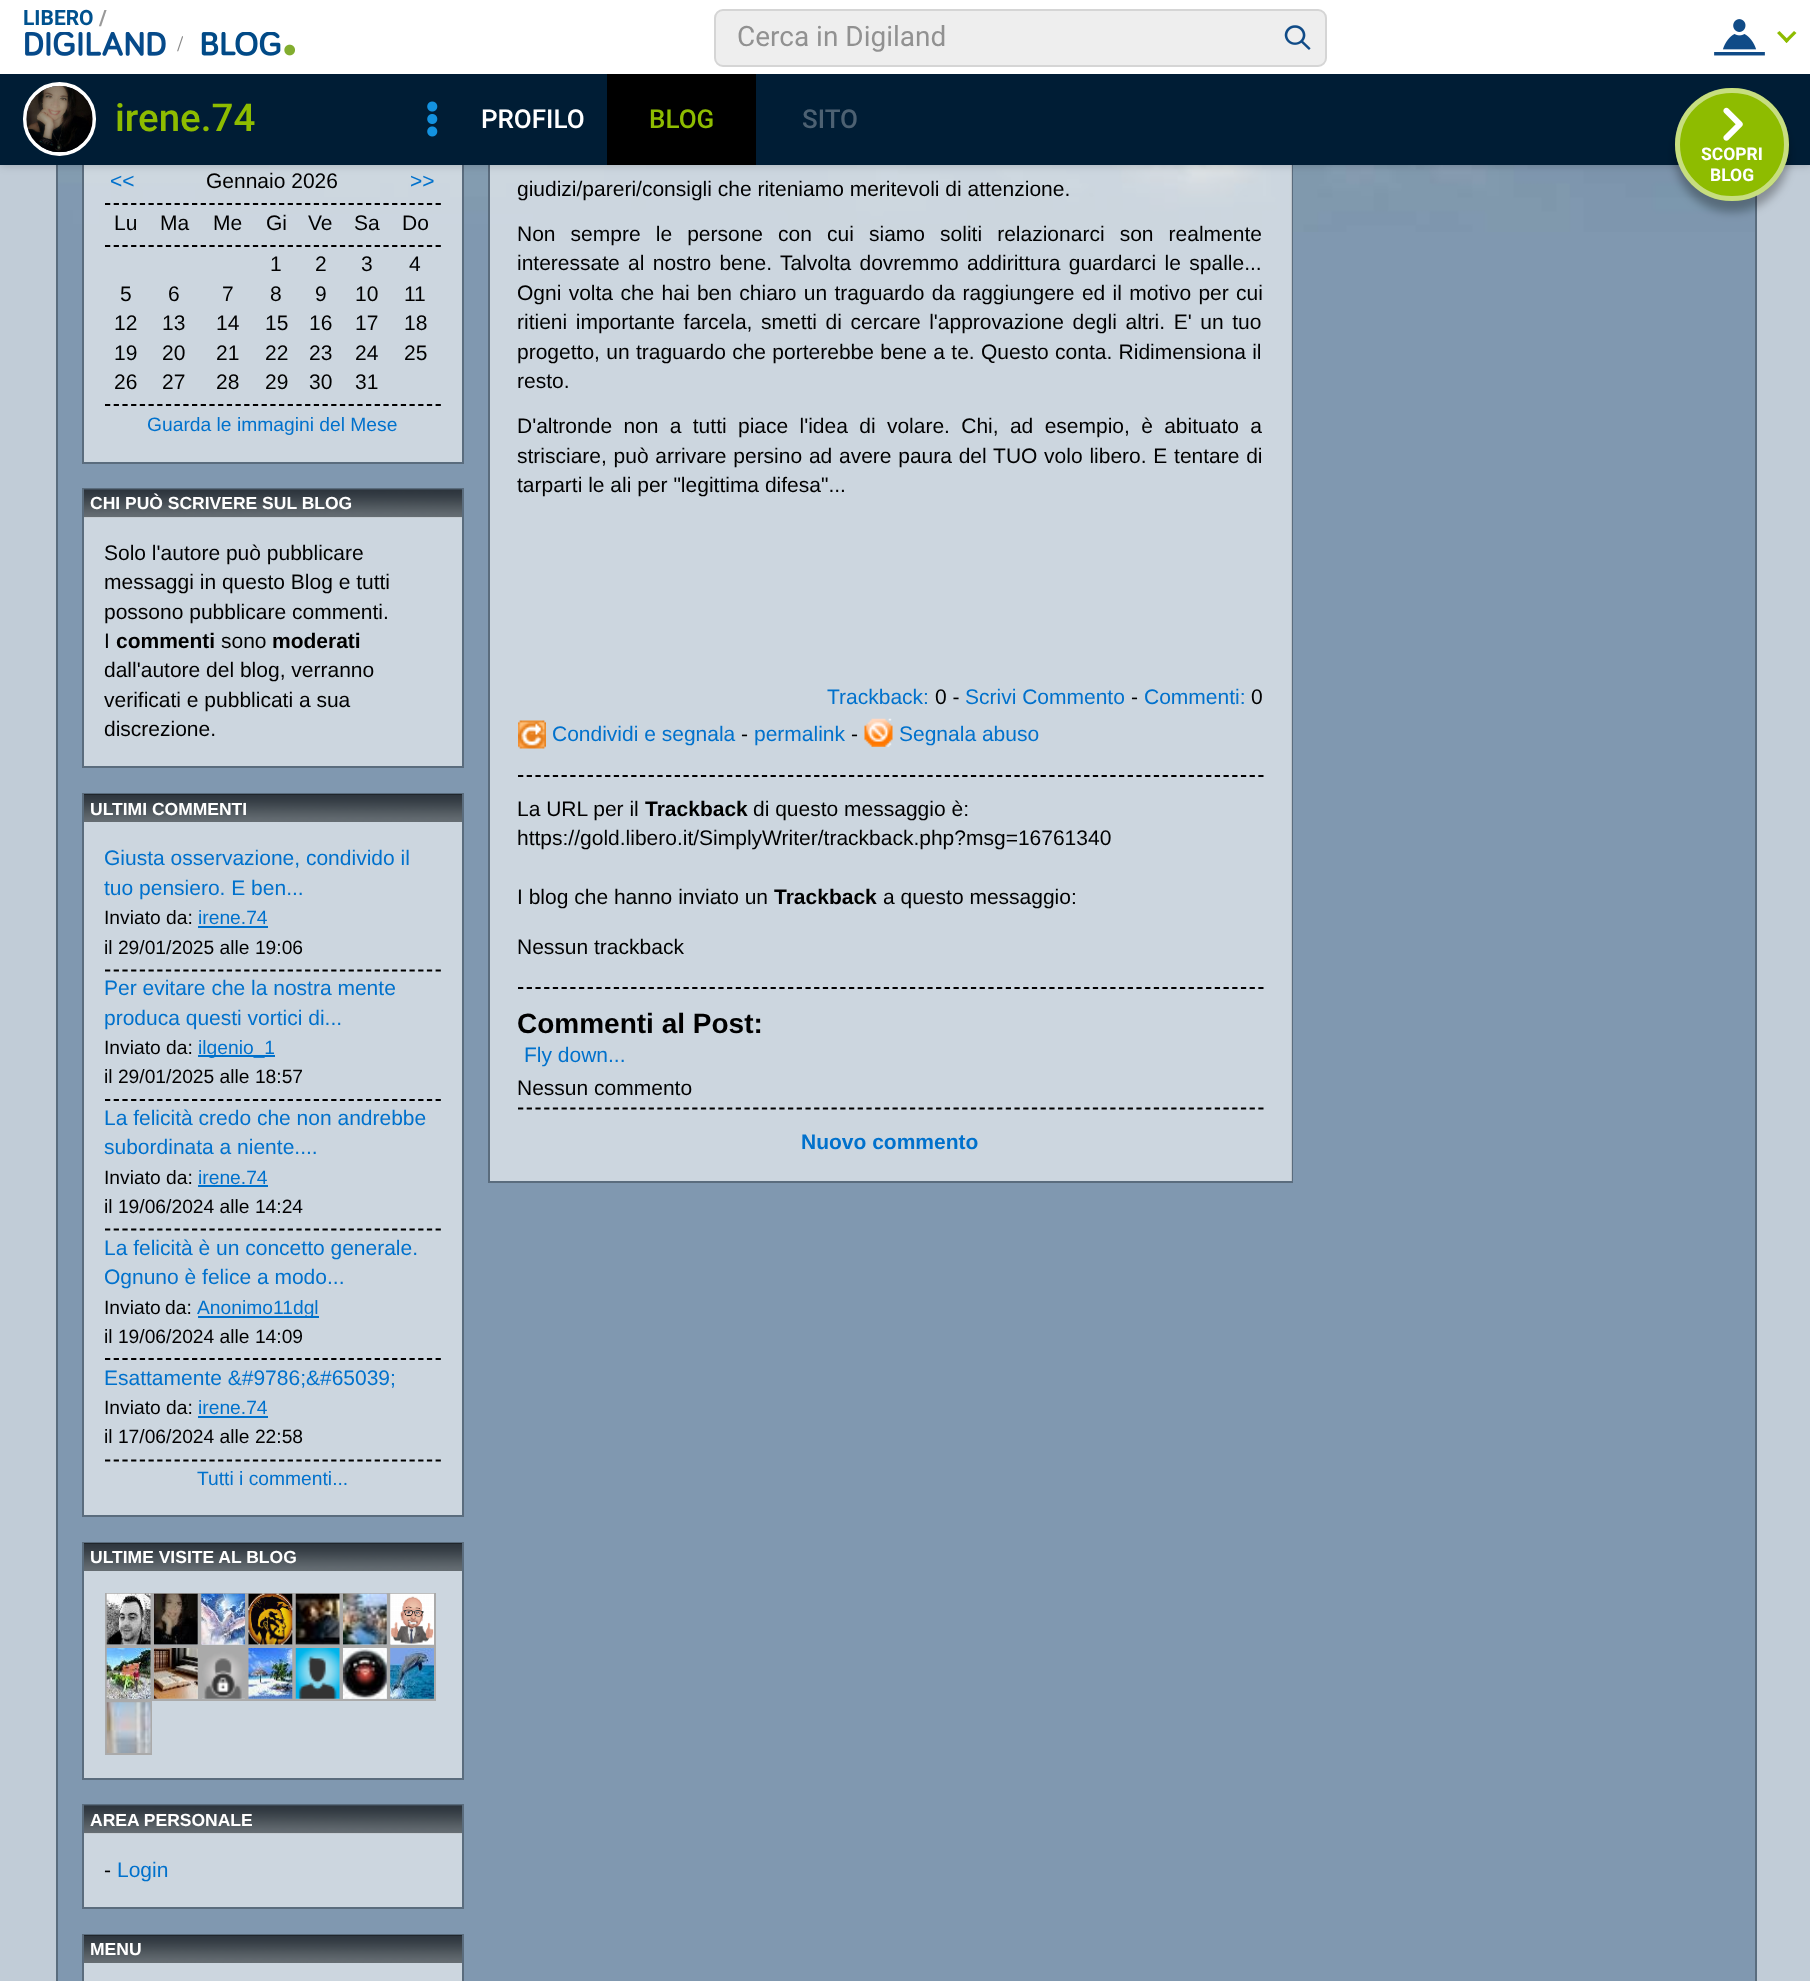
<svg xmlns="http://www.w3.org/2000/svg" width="1810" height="1981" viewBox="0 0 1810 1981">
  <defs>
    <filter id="blur1" x="-50%" y="-200%" width="200%" height="500%"><feGaussianBlur stdDeviation="5"/></filter>
  </defs>
  <rect width="100%" height="100%" fill="#c1ccd7"/>
  <image x="58" y="165" width="1697" height="67" href="img9.png"/>
  <rect x="58" y="232" width="1697" height="1749" fill="#8098b0"/>
  <rect x="57" y="-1" width="1699" height="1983" fill="none" stroke="#5a6c7d" stroke-width="2"/>
  <rect x="83" y="118" width="380" height="345" fill="none" stroke="#5a6c7d" stroke-width="2"/>
  <rect x="84" y="165" width="378" height="297" fill="#ffffff" fill-opacity="0.6"/>
  <rect x="489" y="-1" width="803" height="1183" fill="none" stroke="#5a6c7d" stroke-width="2"/>
  <rect x="490" y="165" width="802" height="1016" fill="#ffffff" fill-opacity="0.6"/>
  <rect x="0" y="0" width="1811" height="165" fill="#000000" fill-opacity="0.2" filter="url(#blur1)"/>
  <rect x="0" y="0" width="1810" height="74" fill="#ffffff"/>
  <text x="23" y="25" font-family="Roboto" font-size="21" font-weight="bold" fill="#00528f">LIBERO</text>
  <text x="99" y="25" font-family="Roboto" font-size="21" font-weight="bold" fill="#999999">/</text>
  <rect x="715" y="10" width="611" height="56" rx="8" fill="#eeeeee" stroke="#d5d5d5" stroke-width="2"/>
  <text x="737" y="46" font-family="Roboto" font-size="28" fill="#919191">Cerca in Digiland</text>
  <image x="1284" y="25" width="27" height="25" href="img1.png"/>
  <image x="1714" y="19" width="51" height="37" href="img2.png"/>
  <path d="M1794 31L1796.5 33L1786.5 43L1784.5 40.5Z" fill="#8ebc00"/>
  <path d="M1779.5 31L1789 40.5L1786.5 43L1777 33Z" fill="#8ebc00"/>
  <image x="25" y="32" width="141" height="24" href="img3.png"/>
  <image x="177" y="36" width="6" height="16" href="img4.png"/>
  <image x="201" y="32" width="94" height="24" href="img5.png"/>
  <rect x="0" y="74" width="1810" height="91" fill="#001d35"/>
  <rect x="25" y="84" width="69" height="70" rx="34.5" fill="none" stroke="#ffffff" stroke-width="4"/>
  <image x="26" y="85" width="67" height="68" href="img6.png"/>
  <text x="115" y="131" font-family="Roboto" font-size="38.5" font-weight="500" fill="#8ebc00">irene.74</text>
  <image x="427" y="101" width="11" height="36" href="img7.png"/>
  <text x="481" y="128" font-family="Roboto" font-size="26" font-weight="500" fill="#ffffff">PROFILO</text>
  <rect x="607" y="74" width="149" height="91" fill="#000000"/>
  <text x="649" y="128" font-family="Roboto" font-size="26" font-weight="500" fill="#8ebc00">BLOG</text>
  <text x="802" y="128" font-family="Roboto" font-size="26" font-weight="500" fill="#4d6172">SITO</text>
  <rect x="1675" y="98" width="114" height="114" rx="57" fill="#000000" fill-opacity="0.3" filter="url(#blur1)"/>
  <rect x="1675" y="88" width="114" height="113" rx="56.5" fill="#8ebc00"/>
  <rect x="1677.5" y="90.5" width="109" height="108" rx="54" fill="none" stroke="#ffffff" stroke-opacity="0.5" stroke-width="5"/>
  <image x="1723" y="107" width="20" height="34" href="img8.png"/>
  <text x="1701" y="160" font-family="Roboto" font-size="17.5" font-weight="bold" fill="#ffffff">SCOPRI</text>
  <text x="1710" y="181" font-family="Roboto" font-size="17.5" font-weight="bold" fill="#ffffff">BLOG</text>
  <text x="110" y="188" font-family="Liberation Sans" font-size="21" fill="#0071cc">&lt;&lt;</text>
  <text x="206" y="188" font-family="Liberation Sans" font-size="21" fill="#000000">Gennaio 2026</text>
  <text x="410" y="188" font-family="Liberation Sans" font-size="21" fill="#0071cc">&gt;&gt;</text>
  <path d="M105 204H441" fill="none" stroke="#000000" stroke-width="1.8" stroke-dasharray="5.25 3.45"/>
  <text x="114" y="230" font-family="Liberation Sans" font-size="21" fill="#000000">Lu</text>
  <text x="160" y="230" font-family="Liberation Sans" font-size="21" fill="#000000">Ma</text>
  <text x="213" y="230" font-family="Liberation Sans" font-size="21" fill="#000000">Me</text>
  <text x="266" y="230" font-family="Liberation Sans" font-size="21" fill="#000000">Gi</text>
  <text x="308" y="230" font-family="Liberation Sans" font-size="21" fill="#000000">Ve</text>
  <text x="354" y="230" font-family="Liberation Sans" font-size="21" fill="#000000">Sa</text>
  <text x="402" y="230" font-family="Liberation Sans" font-size="21" fill="#000000">Do</text>
  <path d="M105 246H441" fill="none" stroke="#000000" stroke-width="1.8" stroke-dasharray="5.25 3.45"/>
  <text x="270" y="271" font-family="Liberation Sans" font-size="21" fill="#000000">1</text>
  <text x="315" y="271" font-family="Liberation Sans" font-size="21" fill="#000000">2</text>
  <text x="361" y="271" font-family="Liberation Sans" font-size="21" fill="#000000">3</text>
  <text x="409" y="271" font-family="Liberation Sans" font-size="21" fill="#000000">4</text>
  <text x="120" y="301" font-family="Liberation Sans" font-size="21" fill="#000000">5</text>
  <text x="168" y="301" font-family="Liberation Sans" font-size="21" fill="#000000">6</text>
  <text x="222" y="301" font-family="Liberation Sans" font-size="21" fill="#000000">7</text>
  <text x="270" y="301" font-family="Liberation Sans" font-size="21" fill="#000000">8</text>
  <text x="315" y="301" font-family="Liberation Sans" font-size="21" fill="#000000">9</text>
  <text x="355" y="301" font-family="Liberation Sans" font-size="21" fill="#000000">10</text>
  <text x="404" y="301" font-family="Liberation Sans" font-size="21" fill="#000000">11</text>
  <text x="114" y="330" font-family="Liberation Sans" font-size="21" fill="#000000">12</text>
  <text x="162" y="330" font-family="Liberation Sans" font-size="21" fill="#000000">13</text>
  <text x="216" y="330" font-family="Liberation Sans" font-size="21" fill="#000000">14</text>
  <text x="265" y="330" font-family="Liberation Sans" font-size="21" fill="#000000">15</text>
  <text x="309" y="330" font-family="Liberation Sans" font-size="21" fill="#000000">16</text>
  <text x="355" y="330" font-family="Liberation Sans" font-size="21" fill="#000000">17</text>
  <text x="404" y="330" font-family="Liberation Sans" font-size="21" fill="#000000">18</text>
  <text x="114" y="360" font-family="Liberation Sans" font-size="21" fill="#000000">19</text>
  <text x="162" y="360" font-family="Liberation Sans" font-size="21" fill="#000000">20</text>
  <text x="216" y="360" font-family="Liberation Sans" font-size="21" fill="#000000">21</text>
  <text x="265" y="360" font-family="Liberation Sans" font-size="21" fill="#000000">22</text>
  <text x="309" y="360" font-family="Liberation Sans" font-size="21" fill="#000000">23</text>
  <text x="355" y="360" font-family="Liberation Sans" font-size="21" fill="#000000">24</text>
  <text x="404" y="360" font-family="Liberation Sans" font-size="21" fill="#000000">25</text>
  <text x="114" y="389" font-family="Liberation Sans" font-size="21" fill="#000000">26</text>
  <text x="162" y="389" font-family="Liberation Sans" font-size="21" fill="#000000">27</text>
  <text x="216" y="389" font-family="Liberation Sans" font-size="21" fill="#000000">28</text>
  <text x="265" y="389" font-family="Liberation Sans" font-size="21" fill="#000000">29</text>
  <text x="309" y="389" font-family="Liberation Sans" font-size="21" fill="#000000">30</text>
  <text x="355" y="389" font-family="Liberation Sans" font-size="21" fill="#000000">31</text>
  <path d="M105 405H441" fill="none" stroke="#000000" stroke-width="1.8" stroke-dasharray="5.25 3.45"/>
  <text x="147" y="431" font-family="Liberation Sans" font-size="19.25" fill="#0071cc">Guarda le immagini del Mese</text>
  <rect x="83" y="489" width="380" height="278" fill="none" stroke="#5a6c7d" stroke-width="2"/>
  <image x="84" y="489" width="378" height="29" href="img10.png"/>
  <text x="90" y="509" font-family="Liberation Sans" font-size="17.5" font-weight="bold" fill="#ffffff">CHI PUÒ SCRIVERE SUL BLOG</text>
  <rect x="84" y="517" width="378" height="249" fill="#ffffff" fill-opacity="0.6"/>
  <text x="104" y="560" font-family="Liberation Sans" font-size="21" fill="#000000">Solo l'autore può pubblicare</text>
  <text x="104" y="589" font-family="Liberation Sans" font-size="21" fill="#000000">messaggi in questo Blog e tutti</text>
  <text x="104" y="619" font-family="Liberation Sans" font-size="21" fill="#000000">possono pubblicare commenti.</text>
  <text x="104" y="648" font-family="Liberation Sans" font-size="21" fill="#000000">I</text>
  <text x="116" y="648" font-family="Liberation Sans" font-size="21" font-weight="bold" fill="#000000">commenti</text>
  <text x="221" y="648" font-family="Liberation Sans" font-size="21" fill="#000000">sono</text>
  <text x="272" y="648" font-family="Liberation Sans" font-size="21" font-weight="bold" fill="#000000">moderati</text>
  <text x="104" y="677" font-family="Liberation Sans" font-size="21" fill="#000000">dall'autore del blog, verranno</text>
  <text x="104" y="707" font-family="Liberation Sans" font-size="21" fill="#000000">verificati e pubblicati a sua</text>
  <text x="104" y="736" font-family="Liberation Sans" font-size="21" fill="#000000">discrezione.</text>
  <rect x="83" y="794" width="380" height="722" fill="none" stroke="#5a6c7d" stroke-width="2"/>
  <image x="84" y="794" width="378" height="28" href="img11.png"/>
  <text x="90" y="815" font-family="Liberation Sans" font-size="17.5" font-weight="bold" fill="#ffffff">ULTIMI COMMENTI</text>
  <rect x="84" y="822" width="378" height="693" fill="#ccd6df"/>
  <text x="104" y="865" font-family="Liberation Sans" font-size="21" fill="#0071cc">Giusta osservazione, condivido il</text>
  <text x="104" y="895" font-family="Liberation Sans" font-size="21" fill="#0071cc">tuo pensiero. E ben...</text>
  <text x="104" y="924" font-family="Liberation Sans" font-size="19.25" fill="#000000">Inviato da:</text>
  <text x="198" y="924" font-family="Liberation Sans" font-size="19.25" fill="#0071cc">irene.74</text>
  <rect x="198" y="926" width="70" height="2" fill="#0071cc"/>
  <text x="104" y="954" font-family="Liberation Sans" font-size="19.25" fill="#000000">il 29/01/2025 alle 19:06</text>
  <path d="M105 970.5H441" fill="none" stroke="#000000" stroke-width="1.8" stroke-dasharray="5.25 3.45"/>
  <text x="104" y="995" font-family="Liberation Sans" font-size="21" fill="#0071cc">Per evitare che la nostra mente</text>
  <text x="104" y="1025" font-family="Liberation Sans" font-size="21" fill="#0071cc">produca questi vortici di...</text>
  <text x="104" y="1054" font-family="Liberation Sans" font-size="19.25" fill="#000000">Inviato da:</text>
  <rect x="198" y="1055" width="77" height="2" fill="#0071cc"/>
  <text x="198" y="1054" font-family="Liberation Sans" font-size="19.25" fill="#0071cc">ilgenio_1</text>
  <text x="104" y="1083" font-family="Liberation Sans" font-size="19.25" fill="#000000">il 29/01/2025 alle 18:57</text>
  <path d="M105 1100H441" fill="none" stroke="#000000" stroke-width="1.8" stroke-dasharray="5.25 3.45"/>
  <text x="104" y="1125" font-family="Liberation Sans" font-size="21" fill="#0071cc">La felicità credo che non andrebbe</text>
  <text x="104" y="1154" font-family="Liberation Sans" font-size="21" fill="#0071cc">subordinata a niente....</text>
  <text x="104" y="1184" font-family="Liberation Sans" font-size="19.25" fill="#000000">Inviato da:</text>
  <text x="198" y="1184" font-family="Liberation Sans" font-size="19.25" fill="#0071cc">irene.74</text>
  <rect x="198" y="1185" width="70" height="2" fill="#0071cc"/>
  <text x="104" y="1213" font-family="Liberation Sans" font-size="19.25" fill="#000000">il 19/06/2024 alle 14:24</text>
  <path d="M105 1229.5H441" fill="none" stroke="#000000" stroke-width="1.8" stroke-dasharray="5.25 3.45"/>
  <text x="104" y="1255" font-family="Liberation Sans" font-size="21" fill="#0071cc">La felicità è un concetto generale.</text>
  <text x="104" y="1284" font-family="Liberation Sans" font-size="21" fill="#0071cc">Ognuno è felice a modo...</text>
  <text x="104" y="1314" word-spacing="-1" font-family="Liberation Sans" font-size="19.25" fill="#000000">Inviato da:</text>
  <rect x="198" y="1316" width="121" height="2" fill="#0071cc"/>
  <text x="197" y="1314" font-family="Liberation Sans" font-size="19.25" fill="#0071cc">Anonimo11dgl</text>
  <text x="104" y="1343" font-family="Liberation Sans" font-size="19.25" fill="#000000">il 19/06/2024 alle 14:09</text>
  <path d="M105 1359H441" fill="none" stroke="#000000" stroke-width="1.8" stroke-dasharray="5.25 3.45"/>
  <text x="104" y="1385" font-family="Liberation Sans" font-size="21" fill="#0071cc">Esattamente &amp;#9786;&amp;#65039;</text>
  <text x="104" y="1414" font-family="Liberation Sans" font-size="19.25" fill="#000000">Inviato da:</text>
  <text x="198" y="1414" font-family="Liberation Sans" font-size="19.25" fill="#0071cc">irene.74</text>
  <rect x="198" y="1416" width="70" height="2" fill="#0071cc"/>
  <text x="104" y="1443" font-family="Liberation Sans" font-size="19.25" fill="#000000">il 17/06/2024 alle 22:58</text>
  <path d="M105 1460.5H441" fill="none" stroke="#000000" stroke-width="1.8" stroke-dasharray="5.25 3.45"/>
  <text x="197" y="1485" font-family="Liberation Sans" font-size="19.25" fill="#0071cc">Tutti i commenti...</text>
  <rect x="83" y="1543" width="380" height="236" fill="none" stroke="#5a6c7d" stroke-width="2"/>
  <image x="84" y="1543" width="378" height="28" href="img11.png"/>
  <text x="90" y="1563" font-family="Liberation Sans" font-size="17.5" font-weight="bold" fill="#ffffff">ULTIME VISITE AL BLOG</text>
  <rect x="84" y="1571" width="378" height="207" fill="#ccd6df"/>
  <rect x="106" y="1594" width="45" height="52" fill="none" stroke="#aaaaaa" stroke-width="2"/>
  <image x="106" y="1593" width="45" height="52" href="img12.png"/>
  <rect x="153" y="1594" width="46" height="52" fill="none" stroke="#aaaaaa" stroke-width="2"/>
  <image x="154" y="1593" width="44" height="52" href="img13.png"/>
  <rect x="201" y="1594" width="45" height="52" fill="none" stroke="#aaaaaa" stroke-width="2"/>
  <image x="201" y="1593" width="44" height="52" href="img14.png"/>
  <rect x="248" y="1594" width="45" height="52" fill="none" stroke="#aaaaaa" stroke-width="2"/>
  <image x="248" y="1593" width="45" height="52" href="img15.png"/>
  <rect x="295" y="1594" width="45" height="52" fill="none" stroke="#aaaaaa" stroke-width="2"/>
  <image x="295" y="1593" width="45" height="52" href="img16.png"/>
  <rect x="342" y="1594" width="46" height="52" fill="none" stroke="#aaaaaa" stroke-width="2"/>
  <image x="343" y="1593" width="44" height="52" href="img17.png"/>
  <rect x="390" y="1594" width="45" height="52" fill="none" stroke="#aaaaaa" stroke-width="2"/>
  <image x="390" y="1593" width="44" height="52" href="img18.png"/>
  <rect x="106" y="1648" width="45" height="52" fill="none" stroke="#aaaaaa" stroke-width="2"/>
  <rect x="153" y="1648" width="46" height="52" fill="none" stroke="#aaaaaa" stroke-width="2"/>
  <rect x="201" y="1648" width="45" height="52" fill="none" stroke="#aaaaaa" stroke-width="2"/>
  <rect x="248" y="1648" width="45" height="52" fill="none" stroke="#aaaaaa" stroke-width="2"/>
  <rect x="295" y="1648" width="45" height="52" fill="none" stroke="#aaaaaa" stroke-width="2"/>
  <rect x="342" y="1648" width="46" height="52" fill="none" stroke="#aaaaaa" stroke-width="2"/>
  <rect x="390" y="1648" width="45" height="52" fill="none" stroke="#aaaaaa" stroke-width="2"/>
  <image x="106" y="1648" width="45" height="51" href="img19.png"/>
  <image x="154" y="1648" width="44" height="51" href="img20.png"/>
  <image x="202" y="1649" width="43" height="50" href="img21.png"/>
  <image x="248" y="1648" width="45" height="51" href="img22.png"/>
  <image x="295" y="1648" width="45" height="51" href="img23.png"/>
  <image x="343" y="1648" width="44" height="51" href="img24.png"/>
  <image x="390" y="1648" width="44" height="51" href="img25.png"/>
  <rect x="106" y="1702" width="45" height="52" fill="none" stroke="#aaaaaa" stroke-width="2"/>
  <image x="106" y="1702" width="45" height="51" href="img26.png"/>
  <rect x="83" y="1805" width="380" height="103" fill="none" stroke="#5a6c7d" stroke-width="2"/>
  <image x="84" y="1805" width="378" height="29" href="img10.png"/>
  <text x="90" y="1826" font-family="Liberation Sans" font-size="17.5" font-weight="bold" fill="#ffffff">AREA PERSONALE</text>
  <rect x="84" y="1833" width="378" height="74" fill="#ffffff" fill-opacity="0.6"/>
  <text x="104" y="1877" font-family="Liberation Sans" font-size="21" fill="#000000">-</text>
  <text x="117" y="1877" font-family="Liberation Sans" font-size="21" fill="#0071cc">Login</text>
  <rect x="83" y="1935" width="380" height="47" fill="none" stroke="#5a6c7d" stroke-width="2"/>
  <image x="84" y="1935" width="378" height="28" href="img11.png"/>
  <text x="90" y="1955" font-family="Liberation Sans" font-size="17.5" font-weight="bold" fill="#ffffff">MENU</text>
  <rect x="84" y="1963" width="378" height="18" fill="#ccd6df"/>
  <text x="517" y="196" font-family="Liberation Sans" font-size="21" fill="#000000">giudizi/pareri/consigli che riteniamo meritevoli di attenzione.</text>
  <text x="517" y="241" word-spacing="9.25" font-family="Liberation Sans" font-size="21" fill="#000000">Non sempre le persone con cui siamo soliti relazionarci son realmente</text>
  <text x="517" y="270" word-spacing="2.5" font-family="Liberation Sans" font-size="21" fill="#000000">interessate al nostro bene. Talvolta dovremmo addirittura guardarci le spalle...</text>
  <text x="517" y="300" word-spacing="1.5" font-family="Liberation Sans" font-size="21" fill="#000000">Ogni volta che hai ben chiaro un traguardo da raggiungere ed il motivo per cui</text>
  <text x="517" y="329" word-spacing="2.75" font-family="Liberation Sans" font-size="21" fill="#000000">ritieni importante farcela, smetti di cercare l'approvazione degli altri. E' un tuo</text>
  <text x="517" y="359" word-spacing="0.5" font-family="Liberation Sans" font-size="21" fill="#000000">progetto, un traguardo che porterebbe bene a te. Questo conta. Ridimensiona il</text>
  <text x="517" y="388" font-family="Liberation Sans" font-size="21" fill="#000000">resto.</text>
  <text x="517" y="433" word-spacing="5.5" font-family="Liberation Sans" font-size="21" fill="#000000">D'altronde non a tutti piace l'idea di volare. Chi, ad esempio, è abituato a</text>
  <text x="517" y="463" word-spacing="0.9" font-family="Liberation Sans" font-size="21" fill="#000000">strisciare, può arrivare persino ad avere paura del TUO volo libero. E tentare di</text>
  <text x="517" y="492" font-family="Liberation Sans" font-size="21" fill="#000000">tarparti le ali per "legittima difesa"...</text>
  <text x="827" y="704" font-family="Liberation Sans" font-size="21" fill="#0071cc">Trackback:</text>
  <text x="935" y="704" font-family="Liberation Sans" font-size="21" fill="#000000">0 -</text>
  <text x="965" y="704" font-family="Liberation Sans" font-size="21" fill="#0071cc">Scrivi Commento</text>
  <text x="1131" y="704" font-family="Liberation Sans" font-size="21" fill="#000000">-</text>
  <text x="1144" y="704" font-family="Liberation Sans" font-size="21" fill="#0071cc">Commenti:</text>
  <text x="1251" y="704" font-family="Liberation Sans" font-size="21" fill="#000000">0</text>
  <image x="518" y="720" width="28" height="29" href="img27.png"/>
  <text x="552" y="741" font-family="Liberation Sans" font-size="21" fill="#0071cc">Condividi e segnala</text>
  <text x="741" y="741" font-family="Liberation Sans" font-size="21" fill="#000000">-</text>
  <text x="754" y="741" font-family="Liberation Sans" font-size="21" fill="#0071cc">permalink</text>
  <text x="851" y="741" font-family="Liberation Sans" font-size="21" fill="#000000">-</text>
  <image x="864" y="718" width="29" height="29" href="img28.png"/>
  <text x="899" y="741" font-family="Liberation Sans" font-size="21" fill="#0071cc">Segnala abuso</text>
  <path d="M518 776H1263.5" fill="none" stroke="#000000" stroke-width="1.8" stroke-dasharray="5.25 3.46"/>
  <text x="517" y="816" font-family="Liberation Sans" font-size="21" fill="#000000">La URL per il</text>
  <text x="645" y="816" font-family="Liberation Sans" font-size="21" font-weight="bold" fill="#000000">Trackback</text>
  <text x="753" y="816" font-family="Liberation Sans" font-size="21" fill="#000000">di questo messaggio è:</text>
  <text x="517" y="845" font-family="Liberation Sans" font-size="21" fill="#000000">https://gold.libero.it/SimplyWriter/trackback.php?msg=16761340</text>
  <text x="517" y="904" font-family="Liberation Sans" font-size="21" fill="#000000">I blog che hanno inviato un</text>
  <text x="774" y="904" font-family="Liberation Sans" font-size="21" font-weight="bold" fill="#000000">Trackback</text>
  <text x="883" y="904" font-family="Liberation Sans" font-size="21" fill="#000000">a questo messaggio:</text>
  <text x="517" y="954" font-family="Liberation Sans" font-size="21" fill="#000000">Nessun trackback</text>
  <path d="M518 988H1263.5" fill="none" stroke="#000000" stroke-width="1.8" stroke-dasharray="5.25 3.46"/>
  <text x="517" y="1033" font-family="Liberation Sans" font-size="28" font-weight="bold" fill="#000000">Commenti al Post:</text>
  <text x="524" y="1062" font-family="Liberation Sans" font-size="21" fill="#0071cc">Fly down...</text>
  <text x="517" y="1095" font-family="Liberation Sans" font-size="21" fill="#000000">Nessun commento</text>
  <path d="M518 1108.5H1263.5" fill="none" stroke="#000000" stroke-width="1.8" stroke-dasharray="5.25 3.46"/>
  <text x="801" y="1149" font-family="Liberation Sans" font-size="21" font-weight="bold" fill="#0071cc">Nuovo commento</text>
</svg>
